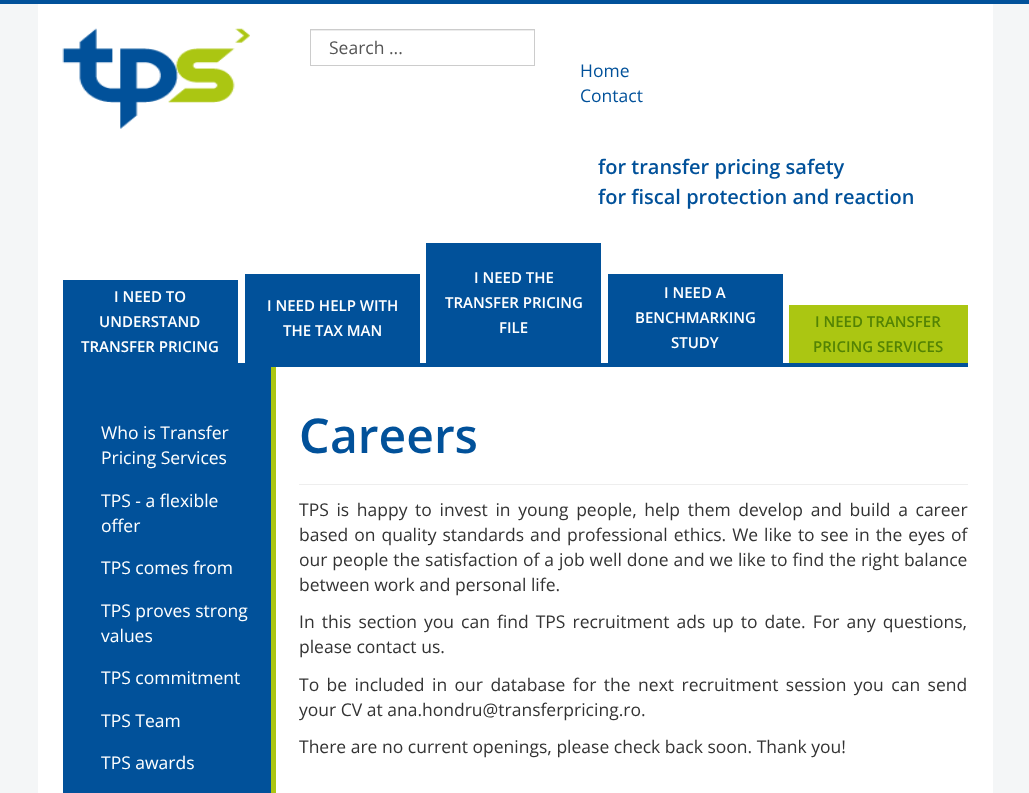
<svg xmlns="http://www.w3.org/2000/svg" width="1029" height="793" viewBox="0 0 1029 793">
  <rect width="100%" height="100%" fill="#f4f6f7"/>
  <rect x="0" y="0" width="1029" height="4" fill="#01519a"/>
  <rect x="38" y="4" width="955" height="789" fill="#ffffff"/>
  <image x="62" y="28" width="188" height="101" href="img1.png"/>
  <rect x="311" y="30" width="223" height="1" fill="#ececec"/>
  <rect x="310.5" y="29.5" width="224" height="36" fill="none" stroke="#cccccc"/>
  <text x="329" y="54" font-family="Open Sans" font-size="17.5" fill="#555555">Search ...</text>
  <text x="580" y="77" font-family="Open Sans" font-size="17.5" fill="#01519a">Home</text>
  <text x="580" y="102" font-family="Open Sans" font-size="17.5" fill="#01519a">Contact</text>
  <text x="598" y="174" font-family="Open Sans" font-size="20" font-weight="600" fill="#01519a">for transfer pricing safety</text>
  <text x="598" y="204" font-family="Open Sans" font-size="20" font-weight="600" fill="#01519a">for fiscal protection and reaction</text>
  <rect x="271" y="366" width="5" height="427" fill="#abc612"/>
  <rect x="63" y="363" width="905" height="4" fill="#01519a"/>
  <rect x="63" y="280" width="175" height="83" fill="#01519a"/>
  <text x="114" y="302" font-family="Open Sans" font-size="15" font-weight="600" fill="#ffffff">I NEED TO</text>
  <text x="99" y="327" font-family="Open Sans" font-size="15" font-weight="600" fill="#ffffff">UNDERSTAND</text>
  <text x="81" y="352" font-family="Open Sans" font-size="15" font-weight="600" fill="#ffffff">TRANSFER PRICING</text>
  <rect x="245" y="274" width="175" height="89" fill="#01519a"/>
  <text x="267" y="311" font-family="Open Sans" font-size="15" font-weight="600" fill="#ffffff">I NEED HELP WITH</text>
  <text x="283" y="336" font-family="Open Sans" font-size="15" font-weight="600" fill="#ffffff">THE TAX MAN</text>
  <rect x="426" y="243" width="175" height="120" fill="#01519a"/>
  <text x="474" y="283" font-family="Open Sans" font-size="15" font-weight="600" fill="#ffffff">I NEED THE</text>
  <text x="445" y="308" font-family="Open Sans" font-size="15" font-weight="600" fill="#ffffff">TRANSFER PRICING</text>
  <text x="499" y="333" font-family="Open Sans" font-size="15" font-weight="600" fill="#ffffff">FILE</text>
  <rect x="608" y="274" width="175" height="89" fill="#01519a"/>
  <text x="664" y="298" font-family="Open Sans" font-size="15" font-weight="600" fill="#ffffff">I NEED A</text>
  <text x="635" y="323" font-family="Open Sans" font-size="15" font-weight="600" fill="#ffffff">BENCHMARKING</text>
  <text x="671" y="348" font-family="Open Sans" font-size="15" font-weight="600" fill="#ffffff">STUDY</text>
  <rect x="789" y="305" width="179" height="58" fill="#abc612"/>
  <text x="815" y="327" font-family="Open Sans" font-size="15" font-weight="600" fill="#538304">I NEED TRANSFER</text>
  <text x="813" y="352" font-family="Open Sans" font-size="15" font-weight="600" fill="#538304">PRICING SERVICES</text>
  <rect x="63" y="367" width="208" height="426" fill="#01519a"/>
  <text x="101" y="439" font-family="Open Sans" font-size="17.5" fill="#ffffff">Who is Transfer</text>
  <text x="101" y="464" font-family="Open Sans" font-size="17.5" fill="#ffffff">Pricing Services</text>
  <text x="101" y="507" font-family="Open Sans" font-size="17.5" fill="#ffffff">TPS - a flexible</text>
  <text x="101" y="532" font-family="Open Sans" font-size="17.5" fill="#ffffff">offer</text>
  <text x="101" y="574" font-family="Open Sans" font-size="17.5" fill="#ffffff">TPS comes from</text>
  <text x="101" y="617" font-family="Open Sans" font-size="17.5" fill="#ffffff">TPS proves strong</text>
  <text x="101" y="642" font-family="Open Sans" font-size="17.5" fill="#ffffff">values</text>
  <text x="101" y="684" font-family="Open Sans" font-size="17.5" fill="#ffffff">TPS commitment</text>
  <text x="101" y="727" font-family="Open Sans" font-size="17.5" fill="#ffffff">TPS Team</text>
  <text x="101" y="769" font-family="Open Sans" font-size="17.5" fill="#ffffff">TPS awards</text>
  <rect x="299" y="484" width="669" height="1" fill="#eeeeee"/>
  <text x="299" y="453" font-family="Noto Sans" font-size="48" font-weight="600" fill="#01519a">C</text>
  <text x="330" y="453" font-family="Open Sans" font-size="48" font-weight="600" fill="#01519a">areers</text>
  <text x="299" y="516" word-spacing="3.1" font-family="Open Sans" font-size="17.5" fill="#333333">TPS is happy to invest in young people, help them develop and build a career</text>
  <text x="299" y="541" word-spacing="1.4" font-family="Open Sans" font-size="17.5" fill="#333333">based on quality standards and professional ethics. We like to see in the eyes of</text>
  <text x="299" y="566" word-spacing="0.4" font-family="Open Sans" font-size="17.5" fill="#333333">our people the satisfaction of a job well done and we like to find the right balance</text>
  <text x="299" y="591" font-family="Open Sans" font-size="17.5" fill="#333333">between work and personal life.</text>
  <text x="299" y="628" word-spacing="2.5" font-family="Open Sans" font-size="17.5" fill="#333333">In this section you can find TPS recruitment ads up to date. For any questions,</text>
  <text x="299" y="653" font-family="Open Sans" font-size="17.5" fill="#333333">please contact us.</text>
  <text x="299" y="691" word-spacing="2.9" font-family="Open Sans" font-size="17.5" fill="#333333">To be included in our database for the next recruitment session you can send</text>
  <text x="299" y="716" font-family="Open Sans" font-size="17.5" fill="#333333">your CV at ana.hondru@transferpricing.ro.</text>
  <text x="299" y="753" font-family="Open Sans" font-size="17.5" fill="#333333">There are no current openings, please check back soon. Thank you!</text>
</svg>
